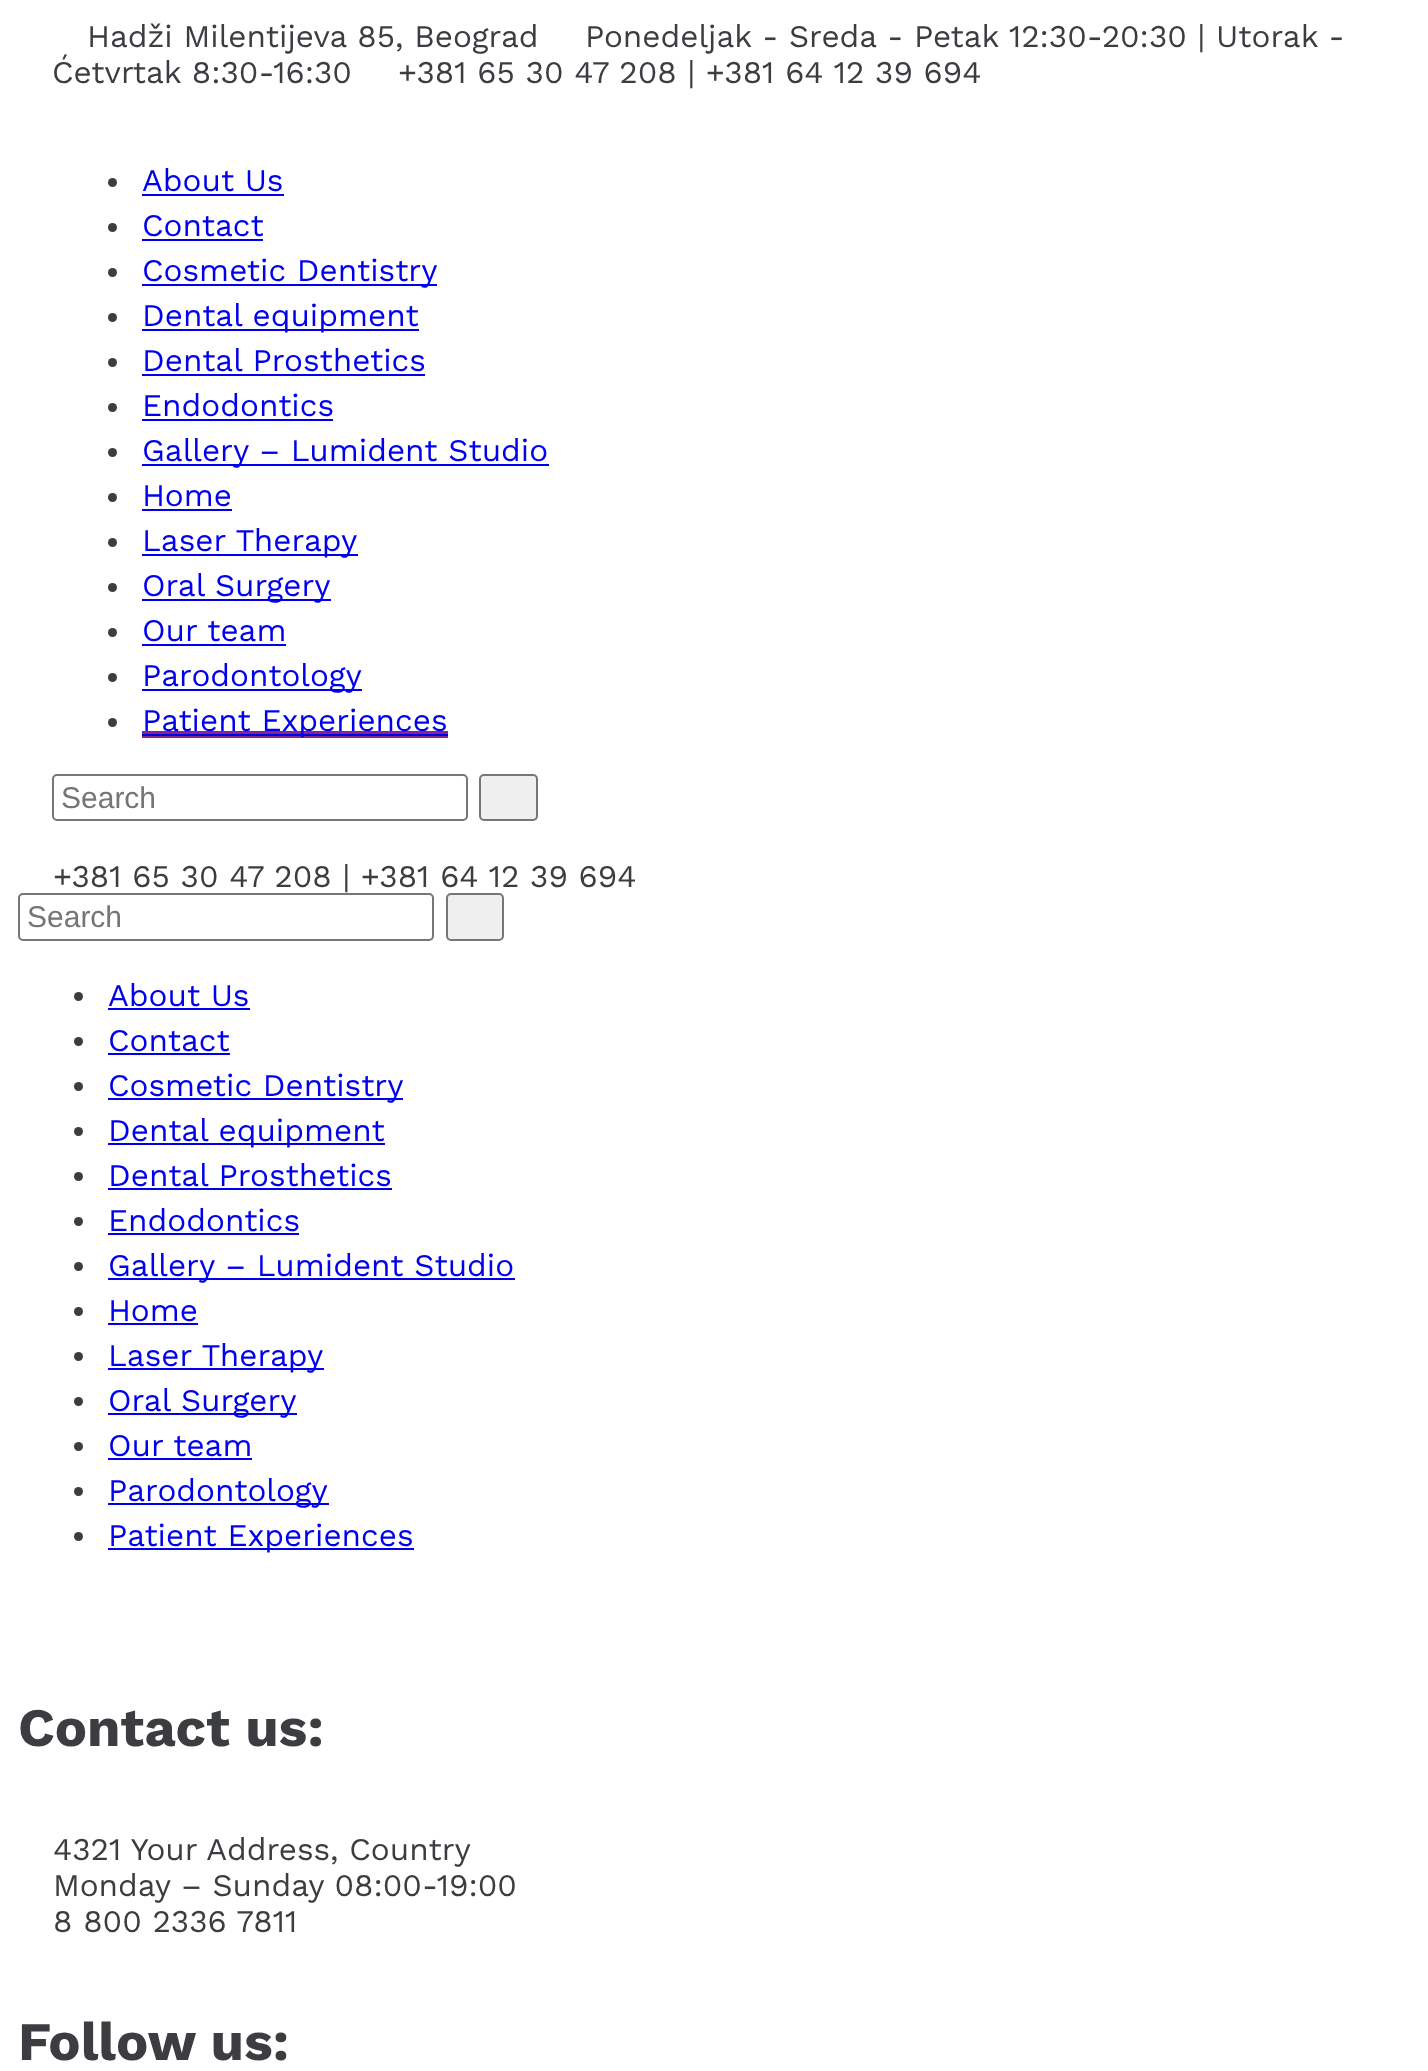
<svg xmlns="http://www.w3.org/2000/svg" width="1428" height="2071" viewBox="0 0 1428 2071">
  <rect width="100%" height="100%" fill="#ffffff"/>
  <text x="87" y="47" font-family="Work Sans" font-size="31.5" fill="#3c3d41">Hadži Milentijeva 85, Beograd</text>
  <text x="585" y="47" font-family="Work Sans" font-size="31.5" fill="#3c3d41">Ponedeljak - Sreda - Petak 12:30-20:30 | Utorak -</text>
  <text x="52" y="83" font-family="Work Sans" font-size="31.5" fill="#3c3d41">Ćetvrtak 8:30-16:30</text>
  <text x="398" y="83" font-family="Work Sans" font-size="31.5" fill="#3c3d41">+381 65 30 47 208 | +381 64 12 39 694</text>
  <circle cx="112.5" cy="182.5" r="4.5" fill="#3c3d41"/>
  <text x="142" y="191" font-family="Work Sans" font-size="31.5" fill="#0000ee">About Us</text>
  <rect x="142" y="194" width="142" height="2" fill="#0000ee"/>
  <circle cx="112.5" cy="227.5" r="4.5" fill="#3c3d41"/>
  <text x="142" y="236" font-family="Work Sans" font-size="31.5" fill="#0000ee">Contact</text>
  <rect x="142" y="239" width="121" height="2" fill="#0000ee"/>
  <circle cx="112.5" cy="272.5" r="4.5" fill="#3c3d41"/>
  <rect x="142" y="284" width="295" height="2" fill="#0000ee"/>
  <text x="142" y="281" font-family="Work Sans" font-size="31.5" fill="#0000ee">Cosmetic Dentistry</text>
  <circle cx="112.5" cy="317.5" r="4.5" fill="#3c3d41"/>
  <rect x="142" y="329" width="277" height="2" fill="#0000ee"/>
  <text x="142" y="326" font-family="Work Sans" font-size="31.5" fill="#0000ee">Dental equipment</text>
  <circle cx="112.5" cy="362.5" r="4.5" fill="#3c3d41"/>
  <text x="142" y="371" font-family="Work Sans" font-size="31.5" fill="#0000ee">Dental Prosthetics</text>
  <rect x="142" y="374" width="283" height="2" fill="#0000ee"/>
  <circle cx="112.5" cy="407.5" r="4.5" fill="#3c3d41"/>
  <text x="142" y="416" font-family="Work Sans" font-size="31.5" fill="#0000ee">Endodontics</text>
  <rect x="142" y="419" width="191" height="2" fill="#0000ee"/>
  <circle cx="112.5" cy="452.5" r="4.5" fill="#3c3d41"/>
  <rect x="142" y="464" width="407" height="2" fill="#0000ee"/>
  <text x="142" y="461" font-family="Work Sans" font-size="31.5" fill="#0000ee">Gallery – Lumident Studio</text>
  <circle cx="112.5" cy="497.5" r="4.5" fill="#3c3d41"/>
  <text x="142" y="506" font-family="Work Sans" font-size="31.5" fill="#0000ee">Home</text>
  <rect x="142" y="509" width="90" height="2" fill="#0000ee"/>
  <circle cx="112.5" cy="542.5" r="4.5" fill="#3c3d41"/>
  <rect x="142" y="554" width="216" height="2" fill="#0000ee"/>
  <text x="142" y="551" font-family="Work Sans" font-size="31.5" fill="#0000ee">Laser Therapy</text>
  <circle cx="112.5" cy="587.5" r="4.5" fill="#3c3d41"/>
  <rect x="142" y="599" width="189" height="2" fill="#0000ee"/>
  <text x="142" y="596" font-family="Work Sans" font-size="31.5" fill="#0000ee">Oral Surgery</text>
  <circle cx="112.5" cy="632.5" r="4.5" fill="#3c3d41"/>
  <text x="142" y="641" font-family="Work Sans" font-size="31.5" fill="#0000ee">Our team</text>
  <rect x="142" y="644" width="144" height="2" fill="#0000ee"/>
  <circle cx="112.5" cy="677.5" r="4.5" fill="#3c3d41"/>
  <rect x="142" y="689" width="220" height="2" fill="#0000ee"/>
  <text x="142" y="686" font-family="Work Sans" font-size="31.5" fill="#0000ee">Parodontology</text>
  <circle cx="112.5" cy="722.5" r="4.5" fill="#3c3d41"/>
  <rect x="142" y="731" width="306" height="7" fill="#85268b"/>
  <rect x="142" y="734" width="306" height="2" fill="#0000ee"/>
  <text x="142" y="731" font-family="Work Sans" font-size="31.5" fill="#0000ee">Patient Experiences</text>
  <rect x="53" y="775" width="414" height="45" rx="4" fill="none" stroke="#767676" stroke-width="2"/>
  <text x="61" y="808" font-family="Liberation Sans" font-size="30" fill="#757575">Search</text>
  <rect x="480" y="775" width="57" height="45" rx="4" fill="#efefef" stroke="#767676" stroke-width="2"/>
  <text x="53" y="887" font-family="Work Sans" font-size="31.5" fill="#3c3d41">+381 65 30 47 208 | +381 64 12 39 694</text>
  <rect x="19" y="894" width="414" height="46" rx="4" fill="none" stroke="#767676" stroke-width="2"/>
  <text x="27" y="927" font-family="Liberation Sans" font-size="30" fill="#757575">Search</text>
  <rect x="447" y="894" width="56" height="46" rx="4" fill="#efefef" stroke="#767676" stroke-width="2"/>
  <circle cx="78.5" cy="996.5" r="4.5" fill="#3c3d41"/>
  <text x="108" y="1006" font-family="Work Sans" font-size="31.5" fill="#0000ee">About Us</text>
  <rect x="108" y="1008" width="142" height="2" fill="#0000ee"/>
  <circle cx="78.5" cy="1041.5" r="4.5" fill="#3c3d41"/>
  <text x="108" y="1051" font-family="Work Sans" font-size="31.5" fill="#0000ee">Contact</text>
  <rect x="108" y="1053" width="122" height="2" fill="#0000ee"/>
  <circle cx="78.5" cy="1086.5" r="4.5" fill="#3c3d41"/>
  <rect x="108" y="1098" width="295" height="2" fill="#0000ee"/>
  <text x="108" y="1096" font-family="Work Sans" font-size="31.5" fill="#0000ee">Cosmetic Dentistry</text>
  <circle cx="78.5" cy="1131.5" r="4.5" fill="#3c3d41"/>
  <rect x="108" y="1143" width="277" height="2" fill="#0000ee"/>
  <text x="108" y="1141" font-family="Work Sans" font-size="31.5" fill="#0000ee">Dental equipment</text>
  <circle cx="78.5" cy="1176.5" r="4.5" fill="#3c3d41"/>
  <text x="108" y="1186" font-family="Work Sans" font-size="31.5" fill="#0000ee">Dental Prosthetics</text>
  <rect x="108" y="1188" width="284" height="2" fill="#0000ee"/>
  <circle cx="78.5" cy="1221.5" r="4.5" fill="#3c3d41"/>
  <text x="108" y="1231" font-family="Work Sans" font-size="31.5" fill="#0000ee">Endodontics</text>
  <rect x="108" y="1233" width="191" height="2" fill="#0000ee"/>
  <circle cx="78.5" cy="1266.5" r="4.5" fill="#3c3d41"/>
  <rect x="108" y="1278" width="407" height="2" fill="#0000ee"/>
  <text x="108" y="1276" font-family="Work Sans" font-size="31.5" fill="#0000ee">Gallery – Lumident Studio</text>
  <circle cx="78.5" cy="1311.5" r="4.5" fill="#3c3d41"/>
  <text x="108" y="1321" font-family="Work Sans" font-size="31.5" fill="#0000ee">Home</text>
  <rect x="108" y="1323" width="90" height="2" fill="#0000ee"/>
  <circle cx="78.5" cy="1356.5" r="4.5" fill="#3c3d41"/>
  <rect x="108" y="1368" width="216" height="2" fill="#0000ee"/>
  <text x="108" y="1366" font-family="Work Sans" font-size="31.5" fill="#0000ee">Laser Therapy</text>
  <circle cx="78.5" cy="1401.5" r="4.5" fill="#3c3d41"/>
  <rect x="108" y="1413" width="189" height="2" fill="#0000ee"/>
  <text x="108" y="1411" font-family="Work Sans" font-size="31.5" fill="#0000ee">Oral Surgery</text>
  <circle cx="78.5" cy="1446.5" r="4.5" fill="#3c3d41"/>
  <text x="108" y="1456" font-family="Work Sans" font-size="31.5" fill="#0000ee">Our team</text>
  <rect x="108" y="1458" width="144" height="2" fill="#0000ee"/>
  <circle cx="78.5" cy="1491.5" r="4.5" fill="#3c3d41"/>
  <rect x="108" y="1503" width="221" height="2" fill="#0000ee"/>
  <text x="108" y="1501" font-family="Work Sans" font-size="31.5" fill="#0000ee">Parodontology</text>
  <circle cx="78.5" cy="1536.5" r="4.5" fill="#3c3d41"/>
  <rect x="108" y="1548" width="306" height="2" fill="#0000ee"/>
  <text x="108" y="1546" font-family="Work Sans" font-size="31.5" fill="#0000ee">Patient Experiences</text>
  <text x="18" y="1746" font-family="Work Sans" font-size="54" font-weight="bold" fill="#3c3d41">Contact us:</text>
  <text x="53" y="1860" font-family="Work Sans" font-size="31.5" fill="#3c3d41">4321 Your Address, Country</text>
  <text x="53" y="1896" font-family="Work Sans" font-size="31.5" fill="#3c3d41">Monday – Sunday 08:00-19:00</text>
  <text x="53" y="1932" font-family="Work Sans" font-size="31.5" fill="#3c3d41">8 800 2336 7811</text>
  <text x="18" y="2060" font-family="Work Sans" font-size="54" font-weight="bold" fill="#3c3d41">Follow us:</text>
</svg>
